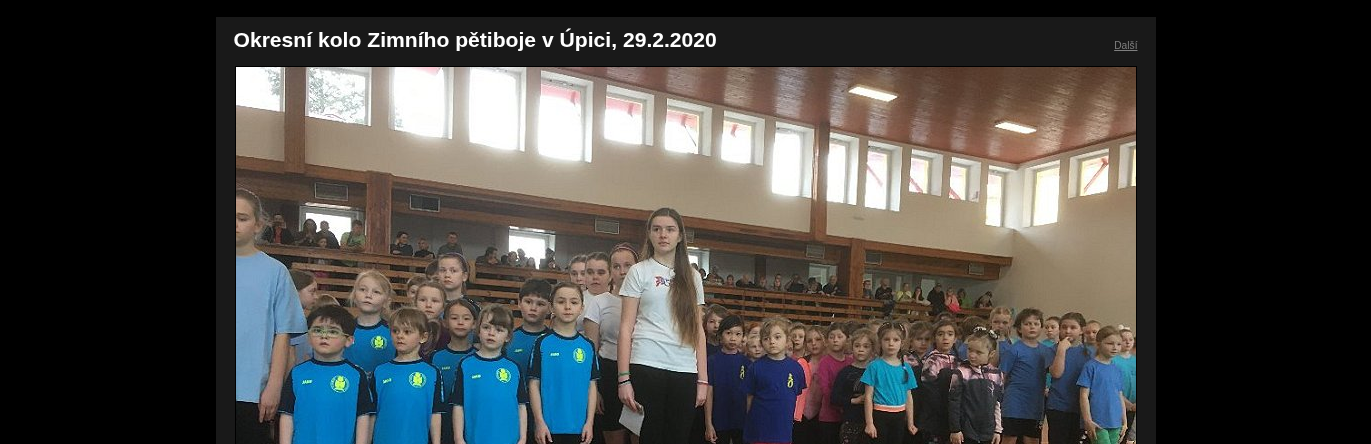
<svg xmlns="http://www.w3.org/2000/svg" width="1371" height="444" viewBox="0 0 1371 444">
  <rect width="100%" height="100%" fill="#000000"/>
  <image x="216" y="17" width="940" height="427" href="img1.png"/>
</svg>
